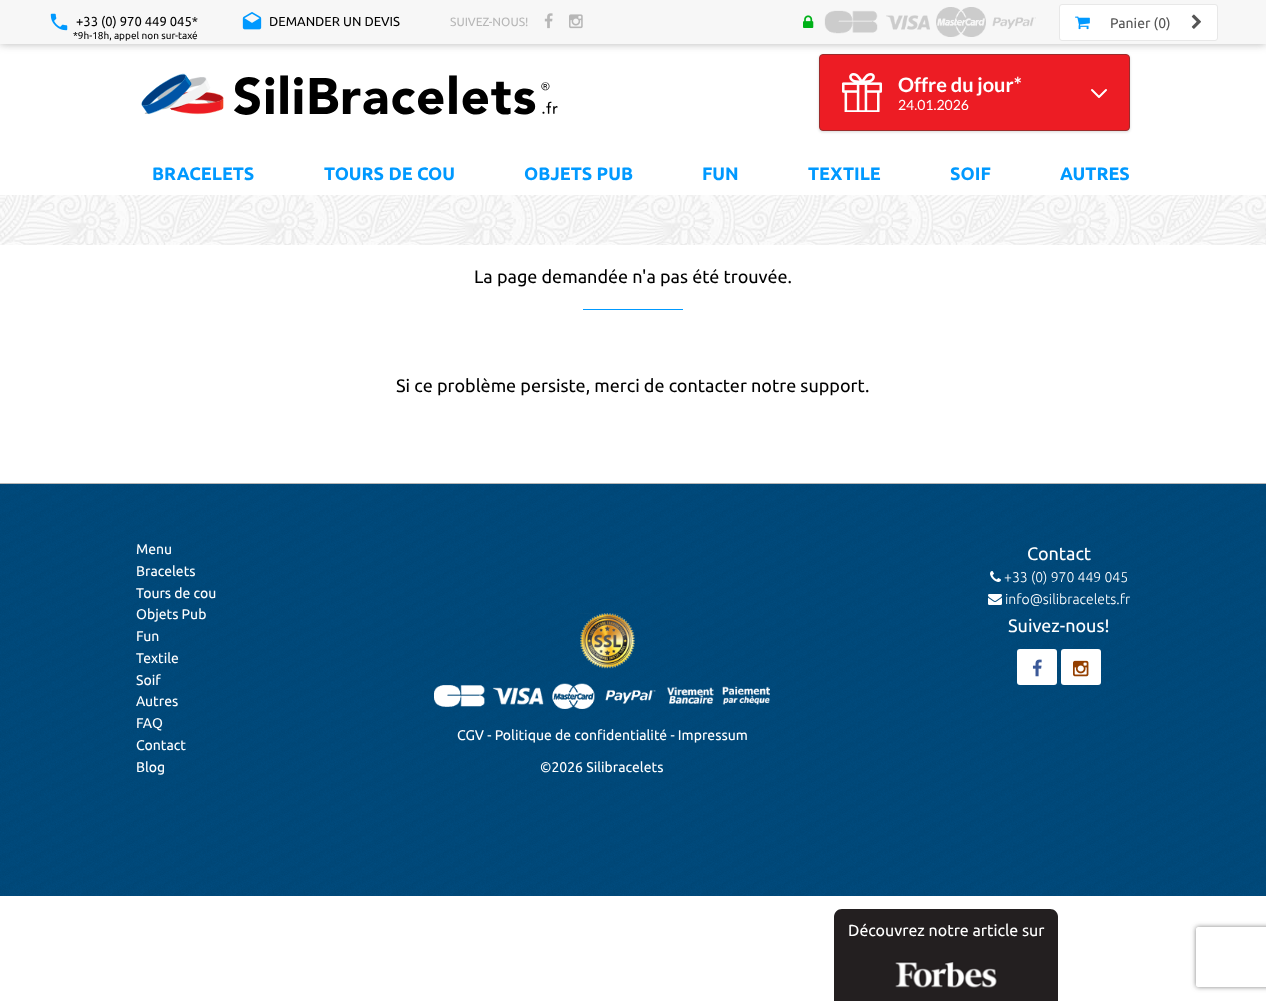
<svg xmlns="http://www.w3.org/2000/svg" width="1266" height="1001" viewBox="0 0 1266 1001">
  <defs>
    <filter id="blur1" x="-50%" y="-200%" width="200%" height="500%"><feGaussianBlur stdDeviation="4"/></filter>
    <filter id="blur2" x="-50%" y="-200%" width="200%" height="500%"><feGaussianBlur stdDeviation="1"/></filter>
    <filter id="blur3" x="-50%" y="-200%" width="200%" height="500%"><feGaussianBlur stdDeviation="1.5"/></filter>
    <clipPath id="clip1"><path d="M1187 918H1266V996H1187ZM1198 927H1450C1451 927 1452 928 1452 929V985C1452 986 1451 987 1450 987H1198C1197 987 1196 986 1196 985V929C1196 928 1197 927 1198 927Z" clip-rule="evenodd"/></clipPath>
    <filter id="blur4" x="-50%" y="-200%" width="200%" height="500%"><feGaussianBlur stdDeviation="2.5"/></filter>
  </defs>
  <rect width="100%" height="100%" fill="#ffffff"/>
  <rect x="0" y="0" width="1266" height="44" fill="#b5b5b5" filter="url(#blur1)"/>
  <rect x="0" y="0" width="1266" height="44" fill="#f7f7f7"/>
  <image x="50" y="13" width="18" height="18" href="img1.png"/>
  <text x="76" y="26" font-family="Ubuntu" font-size="13" fill="#000000">+33 (0) 970 449 045*</text>
  <image x="242" y="12" width="20" height="18" href="img2.png"/>
  <text x="269" y="26" font-family="Ubuntu" font-size="13" fill="#000000">DEMANDER UN DEVIS</text>
  <text x="450" y="26" font-family="Ubuntu" font-size="12" fill="#b7b7b7">SUIVEZ-NOUS!</text>
  <image x="544" y="13" width="9" height="16" href="img3.png"/>
  <image x="569" y="14" width="14" height="15" href="img4.png"/>
  <image x="803" y="15" width="11" height="13" href="img5.png"/>
  <image x="824" y="10" width="54" height="24" href="img6.png"/>
  <image x="886" y="15" width="44" height="15" href="img7.png"/>
  <image x="936" y="7" width="50" height="30" href="img8.png"/>
  <image x="992" y="17" width="44" height="12" href="img9.png"/>
  <rect x="1059.5" y="4.5" width="158" height="36" rx="2.5" fill="#ffffff" stroke="#e8e8e8"/>
  <image x="1075" y="16" width="15" height="14" href="img10.png"/>
  <text x="1110" y="28" font-family="Ubuntu" font-size="14" fill="#555555">Panier (0)</text>
  <image x="1191" y="14" width="10" height="15" href="img11.png"/>
  <text x="73" y="39" font-family="Ubuntu" font-size="10" fill="#000000">*9h-18h, appel non sur-taxé</text>
  <image x="141" y="73" width="417" height="42" href="img12.png"/>
  <rect x="819" y="55" width="311" height="77" rx="4" fill="#000000" fill-opacity="0.06" filter="url(#blur2)"/>
  <rect x="819" y="55" width="311" height="77" rx="4" fill="#000000" fill-opacity="0.1" filter="url(#blur3)"/>
  <rect x="819.5" y="54.5" width="310" height="76" rx="3.5" fill="#ed1c24" stroke="#9b2c2c"/>
  <image x="842" y="73" width="40" height="39" href="img13.png"/>
  <text x="898" y="92" font-family="Lato" font-size="20" font-weight="bold" fill="#ffffff">Offre du jour*</text>
  <text x="898" y="110" font-family="Lato" font-size="14" fill="#ffffff">24.01.2026</text>
  <path d="M1106 90L1099 97L1092 90" fill="none" stroke="#ffffff" stroke-width="2" stroke-linecap="round" stroke-linejoin="round"/>
  <text x="152" y="180" font-family="Ubuntu" font-size="18" font-weight="bold" fill="#0099ff">BRACELETS</text>
  <text x="324" y="180" font-family="Ubuntu" font-size="18" font-weight="bold" fill="#0099ff">TOURS DE COU</text>
  <text x="524" y="180" font-family="Ubuntu" font-size="18" font-weight="bold" fill="#0099ff">OBJETS PUB</text>
  <text x="702" y="180" font-family="Ubuntu" font-size="18" font-weight="bold" fill="#0099ff">FUN</text>
  <text x="808" y="180" font-family="Ubuntu" font-size="18" font-weight="bold" fill="#0099ff">TEXTILE</text>
  <text x="950" y="180" font-family="Ubuntu" font-size="18" font-weight="bold" fill="#0099ff">SOIF</text>
  <text x="1060" y="180" font-family="Ubuntu" font-size="18" font-weight="bold" fill="#0099ff">AUTRES</text>
  <image x="0" y="195" width="1266" height="50" href="img14.png"/>
  <text x="474" y="283" font-family="Ubuntu" font-size="18" fill="#000000">La page demandée n'a pas été trouvée.</text>
  <rect x="583" y="309" width="100" height="1" fill="#0099ff"/>
  <text x="396" y="392" font-family="Ubuntu" font-size="18" fill="#000000">Si ce problème persiste, merci de contacter notre support.</text>
  <rect x="0" y="484" width="1266" height="412" fill="#005086"/>
  <image x="0" y="484" width="1266" height="412" href="img15.png"/>
  <rect x="0" y="483" width="1266" height="1" fill="#b7b7b7"/>
  <text x="136" y="554" font-family="Ubuntu" font-size="14" fill="#ffffff">Menu</text>
  <text x="136" y="576" font-family="Ubuntu" font-size="14" fill="#ffffff">Bracelets</text>
  <text x="136" y="598" font-family="Ubuntu" font-size="14" fill="#ffffff">Tours de cou</text>
  <text x="136" y="619" font-family="Ubuntu" font-size="14" fill="#ffffff">Objets Pub</text>
  <text x="136" y="641" font-family="Ubuntu" font-size="14" fill="#ffffff">Fun</text>
  <text x="136" y="663" font-family="Ubuntu" font-size="14" fill="#ffffff">Textile</text>
  <text x="136" y="685" font-family="Ubuntu" font-size="14" fill="#ffffff">Soif</text>
  <text x="136" y="706" font-family="Ubuntu" font-size="14" fill="#ffffff">Autres</text>
  <text x="136" y="728" font-family="Ubuntu" font-size="14" fill="#ffffff">FAQ</text>
  <text x="136" y="750" font-family="Ubuntu" font-size="14" fill="#ffffff">Contact</text>
  <text x="136" y="772" font-family="Ubuntu" font-size="14" fill="#ffffff">Blog</text>
  <text x="1027" y="560" font-family="Ubuntu" font-size="18" fill="#ffffff">Contact</text>
  <image x="990" y="571" width="11" height="11" href="img16.png"/>
  <text x="1004" y="582" font-family="Ubuntu" font-size="14" font-weight="300" fill="#ffffff">+33 (0) 970 449 045</text>
  <image x="988" y="594" width="14" height="11" href="img17.png"/>
  <text x="1005" y="604" font-family="Ubuntu" font-size="14" font-weight="300" fill="#ffffff">info@silibracelets.fr</text>
  <text x="1008" y="632" font-family="Ubuntu" font-size="18" fill="#ffffff">Suivez-nous!</text>
  <rect x="1017" y="649" width="40" height="36" rx="3" fill="#ffffff"/>
  <image x="1032" y="659" width="10" height="18" href="img18.png"/>
  <rect x="1061" y="649" width="40" height="36" rx="3" fill="#ffffff"/>
  <image x="1073" y="660" width="16" height="17" href="img19.png"/>
  <image x="434" y="613" width="336" height="96" href="img20.png"/>
  <text x="457" y="740" font-family="Ubuntu" font-size="14" fill="#ffffff">CGV - Politique de confidentialité - Impressum</text>
  <text x="540" y="772" font-family="Ubuntu" font-size="14" fill="#ffffff">©2026 Silibracelets</text>
  <path d="M842 909H1050C1054.5 909 1058 912.5 1058 917V1001H834V917C834 912.5 837.5 909 842 909Z" fill="#231f20"/>
  <text x="848" y="936" font-family="Ubuntu" font-size="16" fill="#ffffff">Découvrez notre article sur</text>
  <image x="895" y="961" width="103" height="27" href="img21.png"/>
  <g clip-path="url(#clip1)">
    <rect x="1196" y="927" width="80" height="60" rx="2" fill="#808080" filter="url(#blur4)"/>
  </g>
</svg>
